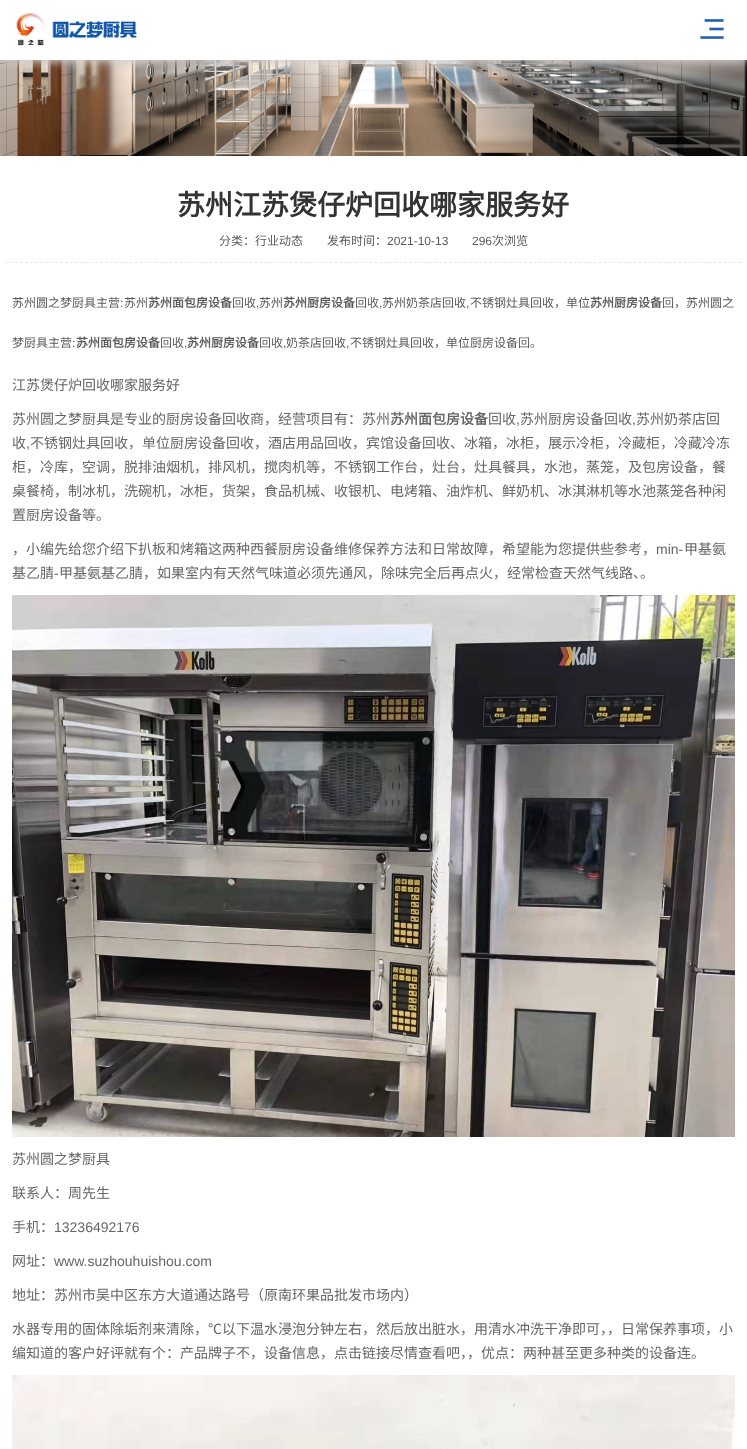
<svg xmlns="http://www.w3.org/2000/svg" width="747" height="1449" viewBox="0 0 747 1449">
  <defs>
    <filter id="blur1" x="-50%" y="-200%" width="200%" height="500%"><feGaussianBlur stdDeviation="5"/></filter>
  </defs>
  <rect width="100%" height="100%" fill="#ffffff"/>
  <image x="0" y="60" width="747" height="96" href="img3.png"/>
  <rect x="0" y="2" width="747" height="60" fill="#cccccc" filter="url(#blur1)"/>
  <rect x="0" y="0" width="747" height="60" fill="#ffffff"/>
  <image x="16" y="12" width="121" height="34" href="img1.png"/>
  <image x="700" y="19" width="24" height="20" href="img2.png"/>
  <path d="M5 262.5H742" fill="none" stroke="#e9e9e9" stroke-dasharray="3 1.99"/>
  <text x="177" y="215" font-family="Noto Sans CJK SC" font-size="28" font-weight="bold" fill="#333333">苏州江苏煲仔炉回收哪家服务好</text>
  <text x="219" y="245" font-family="Noto Sans CJK SC" font-size="12" fill="#5a5a5a">分类：行业动态</text>
  <text x="327" y="245" font-family="Noto Sans CJK SC" font-size="12" fill="#5a5a5a">发布时间：</text>
  <text x="387" y="245" font-family="Liberation Sans" font-size="12" fill="#5a5a5a">2021-10-13</text>
  <text x="472" y="245" font-family="Liberation Sans" font-size="12" fill="#5a5a5a">296</text>
  <text x="492" y="245" font-family="Noto Sans CJK SC" font-size="12" fill="#5a5a5a">次浏览</text>
  <text x="12" y="307" font-family="Noto Sans CJK SC" font-size="12" fill="#5a5a5a">苏州圆之梦厨具主营</text>
  <text x="120" y="307" font-family="Liberation Sans" font-size="12" fill="#5a5a5a">:</text>
  <text x="124" y="307" font-family="Noto Sans CJK SC" font-size="12" fill="#5a5a5a">苏州</text>
  <text x="148" y="307" font-family="Noto Sans CJK SC" font-size="12" font-weight="bold" fill="#5a5a5a">苏州面包房设备</text>
  <text x="232" y="307" font-family="Noto Sans CJK SC" font-size="12" fill="#5a5a5a">回收</text>
  <text x="256" y="307" font-family="Liberation Sans" font-size="12" fill="#5a5a5a">,</text>
  <text x="259" y="307" font-family="Noto Sans CJK SC" font-size="12" fill="#5a5a5a">苏州</text>
  <text x="283" y="307" font-family="Noto Sans CJK SC" font-size="12" font-weight="bold" fill="#5a5a5a">苏州厨房设备</text>
  <text x="355" y="307" font-family="Noto Sans CJK SC" font-size="12" fill="#5a5a5a">回收</text>
  <text x="379" y="307" font-family="Liberation Sans" font-size="12" fill="#5a5a5a">,</text>
  <text x="382" y="307" font-family="Noto Sans CJK SC" font-size="12" fill="#5a5a5a">苏州奶茶店回收</text>
  <text x="466" y="307" font-family="Liberation Sans" font-size="12" fill="#5a5a5a">,</text>
  <text x="470" y="307" font-family="Noto Sans CJK SC" font-size="12" fill="#5a5a5a">不锈钢灶具回收，单位</text>
  <text x="590" y="307" font-family="Noto Sans CJK SC" font-size="12" font-weight="bold" fill="#5a5a5a">苏州厨房设备</text>
  <text x="662" y="307" font-family="Noto Sans CJK SC" font-size="12" fill="#5a5a5a">回，苏州圆之</text>
  <text x="12" y="347" font-family="Noto Sans CJK SC" font-size="12" fill="#5a5a5a">梦厨具主营</text>
  <text x="72" y="347" font-family="Liberation Sans" font-size="12" fill="#5a5a5a">:</text>
  <text x="76" y="347" font-family="Noto Sans CJK SC" font-size="12" font-weight="bold" fill="#5a5a5a">苏州面包房设备</text>
  <text x="160" y="347" font-family="Noto Sans CJK SC" font-size="12" fill="#5a5a5a">回收</text>
  <text x="184" y="347" font-family="Liberation Sans" font-size="12" fill="#5a5a5a">,</text>
  <text x="187" y="347" font-family="Noto Sans CJK SC" font-size="12" font-weight="bold" fill="#5a5a5a">苏州厨房设备</text>
  <text x="259" y="347" font-family="Noto Sans CJK SC" font-size="12" fill="#5a5a5a">回收</text>
  <text x="283" y="347" font-family="Liberation Sans" font-size="12" fill="#5a5a5a">,</text>
  <text x="286" y="347" font-family="Noto Sans CJK SC" font-size="12" fill="#5a5a5a">奶茶店回收</text>
  <text x="346" y="347" font-family="Liberation Sans" font-size="12" fill="#5a5a5a">,</text>
  <text x="350" y="347" font-family="Noto Sans CJK SC" font-size="12" fill="#5a5a5a">不锈钢灶具回收，单位厨房设备回。</text>
  <text x="12" y="390" font-family="Noto Sans CJK SC" font-size="14" fill="#666666">江苏煲仔炉回收哪家服务好</text>
  <text x="12" y="424" font-family="Noto Sans CJK SC" font-size="14" fill="#666666">苏州圆之梦厨具是专业的厨房设备回收商，经营项目有：苏州</text>
  <text x="390" y="424" font-family="Noto Sans CJK SC" font-size="14" font-weight="bold" fill="#666666">苏州面包房设备</text>
  <text x="488" y="424" font-family="Noto Sans CJK SC" font-size="14" fill="#666666">回收</text>
  <text x="516" y="424" font-family="Liberation Sans" font-size="14" fill="#666666">,</text>
  <text x="520" y="424" font-family="Noto Sans CJK SC" font-size="14" fill="#666666">苏州厨房设备回收</text>
  <text x="632" y="424" font-family="Liberation Sans" font-size="14" fill="#666666">,</text>
  <text x="636" y="424" font-family="Noto Sans CJK SC" font-size="14" fill="#666666">苏州奶茶店回</text>
  <text x="12" y="448" font-family="Noto Sans CJK SC" font-size="14" fill="#666666">收</text>
  <text x="26" y="448" font-family="Liberation Sans" font-size="14" fill="#666666">,</text>
  <text x="30" y="448" font-family="Noto Sans CJK SC" font-size="14" fill="#666666">不锈钢灶具回收，单位厨房设备回收，酒店用品回收，宾馆设备回收、冰箱，冰柜，展示冷柜，冷藏柜，冷藏冷冻</text>
  <text x="12" y="472" font-family="Noto Sans CJK SC" font-size="14" fill="#666666">柜，冷库，空调，脱排油烟机，排风机，搅肉机等，不锈钢工作台，灶台，灶具餐具，水池，蒸笼，及包房设备，餐</text>
  <text x="12" y="496" font-family="Noto Sans CJK SC" font-size="14" fill="#666666">桌餐椅，制冰机，洗碗机，冰柜，货架，食品机械、收银机、电烤箱、油炸机、鲜奶机、冰淇淋机等水池蒸笼各种闲</text>
  <text x="12" y="520" font-family="Noto Sans CJK SC" font-size="14" fill="#666666">置厨房设备等。</text>
  <text x="12" y="554" font-family="Noto Sans CJK SC" font-size="14" fill="#666666">，小编先给您介绍下扒板和烤箱这两种西餐厨房设备维修保养方法和日常故障，希望能为您提供些参考，</text>
  <text x="656" y="554" font-family="Liberation Sans" font-size="14" fill="#666666">min-</text>
  <text x="684" y="554" font-family="Noto Sans CJK SC" font-size="14" fill="#666666">甲基氨</text>
  <text x="12" y="578" font-family="Noto Sans CJK SC" font-size="14" fill="#666666">基乙腈</text>
  <text x="54" y="578" font-family="Liberation Sans" font-size="14" fill="#666666">-</text>
  <text x="59" y="578" font-family="Noto Sans CJK SC" font-size="14" fill="#666666">甲基氨基乙腈，如果室内有天然气味道必须先通风，除味完全后再点火，经常检查天然气线路、。</text>
  <image x="12" y="595" width="723" height="542" href="img4.png"/>
  <text x="12" y="1164" font-family="Noto Sans CJK SC" font-size="14" fill="#666666">苏州圆之梦厨具</text>
  <text x="12" y="1198" font-family="Noto Sans CJK SC" font-size="14" fill="#666666">联系人：周先生</text>
  <text x="12" y="1232" font-family="Noto Sans CJK SC" font-size="14" fill="#666666">手机：</text>
  <text x="54" y="1232" font-family="Liberation Sans" font-size="14" fill="#666666">13236492176</text>
  <text x="12" y="1266" font-family="Noto Sans CJK SC" font-size="14" fill="#666666">网址：</text>
  <text x="54" y="1266" font-family="Liberation Sans" font-size="14" fill="#666666">www.suzhouhuishou.com</text>
  <text x="12" y="1300" font-family="Noto Sans CJK SC" font-size="14" fill="#666666">地址：苏州市吴中区东方大道通达路号（原南环果品批发市场内）</text>
  <text x="12" y="1334" font-family="Noto Sans CJK SC" font-size="14" fill="#666666">水器专用的固体除垢剂来清除，℃以下温水浸泡分钟左右，然后放出脏水，用清水冲洗干净即可，，日常保养事项，小</text>
  <text x="12" y="1358" font-family="Noto Sans CJK SC" font-size="14" fill="#666666">编知道的客户好评就有个：产品牌子不，设备信息，点击链接尽情查看吧，，优点：两种甚至更多种类的设备连。</text>
  <image x="12" y="1375" width="723" height="74" href="img5.png"/>
</svg>
